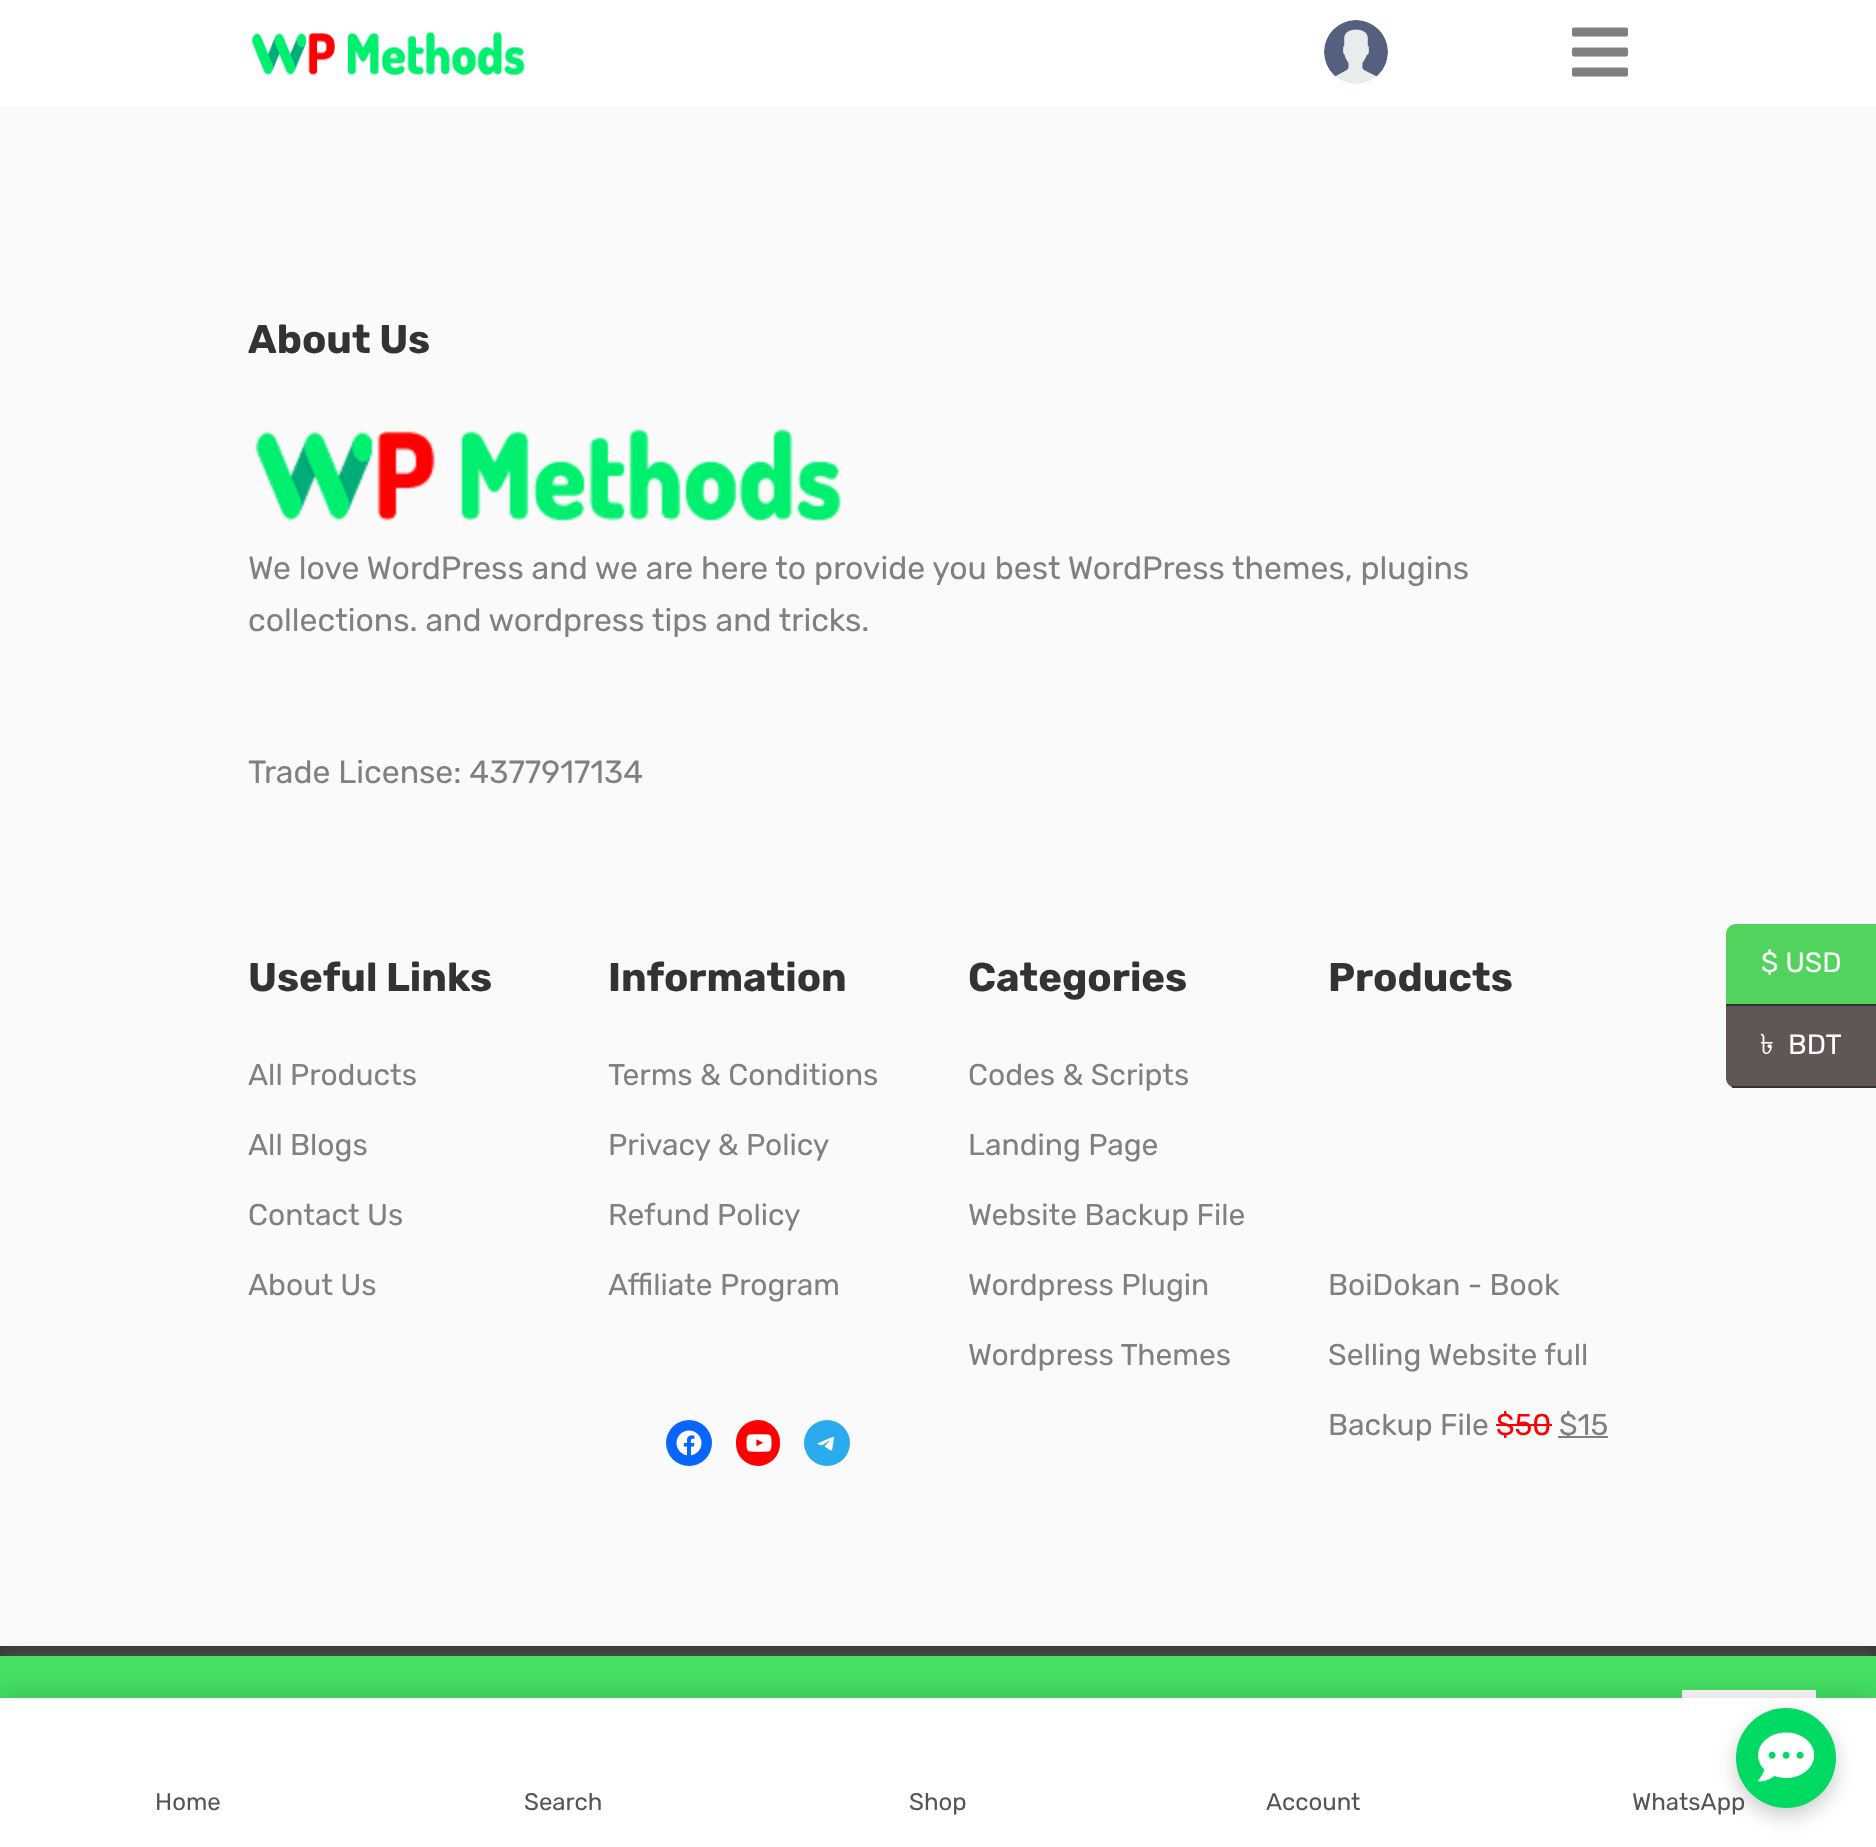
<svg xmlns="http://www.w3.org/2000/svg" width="1876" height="1847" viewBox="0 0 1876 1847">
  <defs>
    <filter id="blur1" x="-50%" y="-200%" width="200%" height="500%"><feGaussianBlur stdDeviation="10"/></filter>
  </defs>
  <rect width="100%" height="100%" fill="#333333"/>
  <rect x="0" y="0" width="1876" height="106" fill="#ffffff"/>
  <image x="251" y="32" width="274" height="44" href="img1.png"/>
  <image x="1324" y="20" width="64" height="64" href="img2.png"/>
  <image x="1572" y="27" width="56" height="50" href="img3.png"/>
  <rect x="0" y="106" width="1876" height="1540" fill="#fafafa"/>
  <text x="248" y="353" font-family="Rubik" font-size="40" font-weight="300" fill="#333333">About Us</text>
  <image x="255" y="429" width="586" height="92" href="img4.png"/>
  <text x="248" y="579" font-family="Rubik" font-size="32" fill="#808080">We love WordPress and we are here to provide you best WordPress themes, plugins</text>
  <text x="248" y="631" font-family="Rubik" font-size="32" fill="#808080">collections. and wordpress</text>
  <text x="652" y="631" font-family="Rubik" font-size="32" fill="#808080">tips and tricks.</text>
  <text x="248" y="783" font-family="Rubik" font-size="32" fill="#808080">Trade License: 4377917134</text>
  <text x="248" y="991" font-family="Rubik" font-size="40" font-weight="300" fill="#333333">Useful Links</text>
  <text x="248" y="1085" font-family="Rubik" font-size="30" fill="#808080">All Products</text>
  <text x="248" y="1155" font-family="Rubik" font-size="30" fill="#808080">All Blogs</text>
  <text x="248" y="1225" font-family="Rubik" font-size="30" fill="#808080">Contact Us</text>
  <text x="248" y="1295" font-family="Rubik" font-size="30" fill="#808080">About Us</text>
  <text x="608" y="991" font-family="Rubik" font-size="40" font-weight="300" fill="#333333">Information</text>
  <text x="608" y="1085" font-family="Rubik" font-size="30" fill="#808080">Terms &amp; Conditions</text>
  <text x="608" y="1155" font-family="Rubik" font-size="30" fill="#808080">Privacy &amp; Policy</text>
  <text x="608" y="1225" font-family="Rubik" font-size="30" fill="#808080">Refund Policy</text>
  <text x="608" y="1295" font-family="Rubik" font-size="30" fill="#808080">Affiliate Program</text>
  <circle cx="689" cy="1443" r="23" fill="#0866ff"/>
  <image x="676" y="1430" width="26" height="26" href="img5.png"/>
  <rect x="736" y="1420" width="44" height="46" rx="22" fill="#ff0000"/>
  <image x="746" y="1434" width="26" height="18" href="img6.png"/>
  <circle cx="827" cy="1443" r="23" fill="#2aabee"/>
  <image x="817" y="1437" width="17" height="14" href="img7.png"/>
  <text x="968" y="991" font-family="Rubik" font-size="40" font-weight="300" fill="#333333">Categories</text>
  <text x="968" y="1085" font-family="Rubik" font-size="30" fill="#808080">Codes &amp; Scripts</text>
  <text x="968" y="1155" font-family="Rubik" font-size="30" fill="#808080">Landing Page</text>
  <text x="968" y="1225" font-family="Rubik" font-size="30" fill="#808080">Website Backup File</text>
  <text x="968" y="1295" font-family="Rubik" font-size="30" fill="#808080">Wordpress Plugin</text>
  <text x="968" y="1365" font-family="Rubik" font-size="30" fill="#808080">Wordpress Themes</text>
  <text x="1328" y="991" font-family="Rubik" font-size="40" font-weight="300" fill="#333333">Products</text>
  <text x="1328" y="1295" font-family="Rubik" font-size="30" fill="#808080">BoiDokan - Book</text>
  <text x="1328" y="1365" font-family="Rubik" font-size="30" fill="#808080">Selling Website full</text>
  <text x="1328" y="1435" font-family="Rubik" font-size="30" fill="#808080">Backup File</text>
  <text x="1496" y="1435" font-family="Rubik" font-size="30" fill="#ff0000">$50</text>
  <rect x="1496" y="1424" width="56" height="2" fill="#ff0000"/>
  <rect x="1558" y="1436" width="50" height="2" fill="#808080"/>
  <text x="1559" y="1435" font-family="Rubik" font-size="30" fill="#808080">$15</text>
  <path d="M1736 924H1876V1006H1726V934C1726 928.5 1730.5 924 1736 924Z" fill="#52d35d"/>
  <rect x="1726" y="1004" width="150" height="2" fill="#333333"/>
  <text x="1761" y="972" font-family="Rubik" font-size="28" fill="#ffffff">$ USD</text>
  <path d="M1726 1006H1876V1088H1736C1730.5 1088 1726 1083.5 1726 1078Z" fill="#605655"/>
  <rect x="1732" y="1086" width="144" height="2" fill="#333333"/>
  <text x="1760" y="1054" font-family="Lohit Bengali" font-size="28" fill="#ffffff">৳</text>
  <text x="1788" y="1054" font-family="Rubik" font-size="28" fill="#ffffff">BDT</text>
  <rect x="0" y="1654" width="1876" height="192" fill="#acabab" fill-opacity="0.3" filter="url(#blur1)"/>
  <rect x="0" y="1656" width="1876" height="42" fill="#45e064"/>
  <rect x="1682" y="1690" width="134" height="8" fill="#ffffff"/>
  <rect x="0" y="1688" width="1876" height="150" fill="#000000" fill-opacity="0.1" filter="url(#blur1)"/>
  <rect x="0" y="1698" width="1876" height="149" fill="#ffffff"/>
  <text x="155" y="1810" font-family="Rubik" font-size="24" fill="#555555">Home</text>
  <text x="524" y="1810" font-family="Rubik" font-size="24" fill="#555555">Search</text>
  <text x="909" y="1810" font-family="Rubik" font-size="24" fill="#555555">Shop</text>
  <text x="1266" y="1810" font-family="Rubik" font-size="24" fill="#555555">Account</text>
  <text x="1632" y="1810" font-family="Rubik" font-size="24" fill="#555555">WhatsApp</text>
  <rect x="1736" y="1716" width="100" height="100" rx="50" fill="#000000" fill-opacity="0.2" filter="url(#blur1)"/>
  <circle cx="1786" cy="1758" r="50" fill="#00da62"/>
  <image x="1758" y="1732" width="57" height="50" href="img8.png"/>
</svg>
